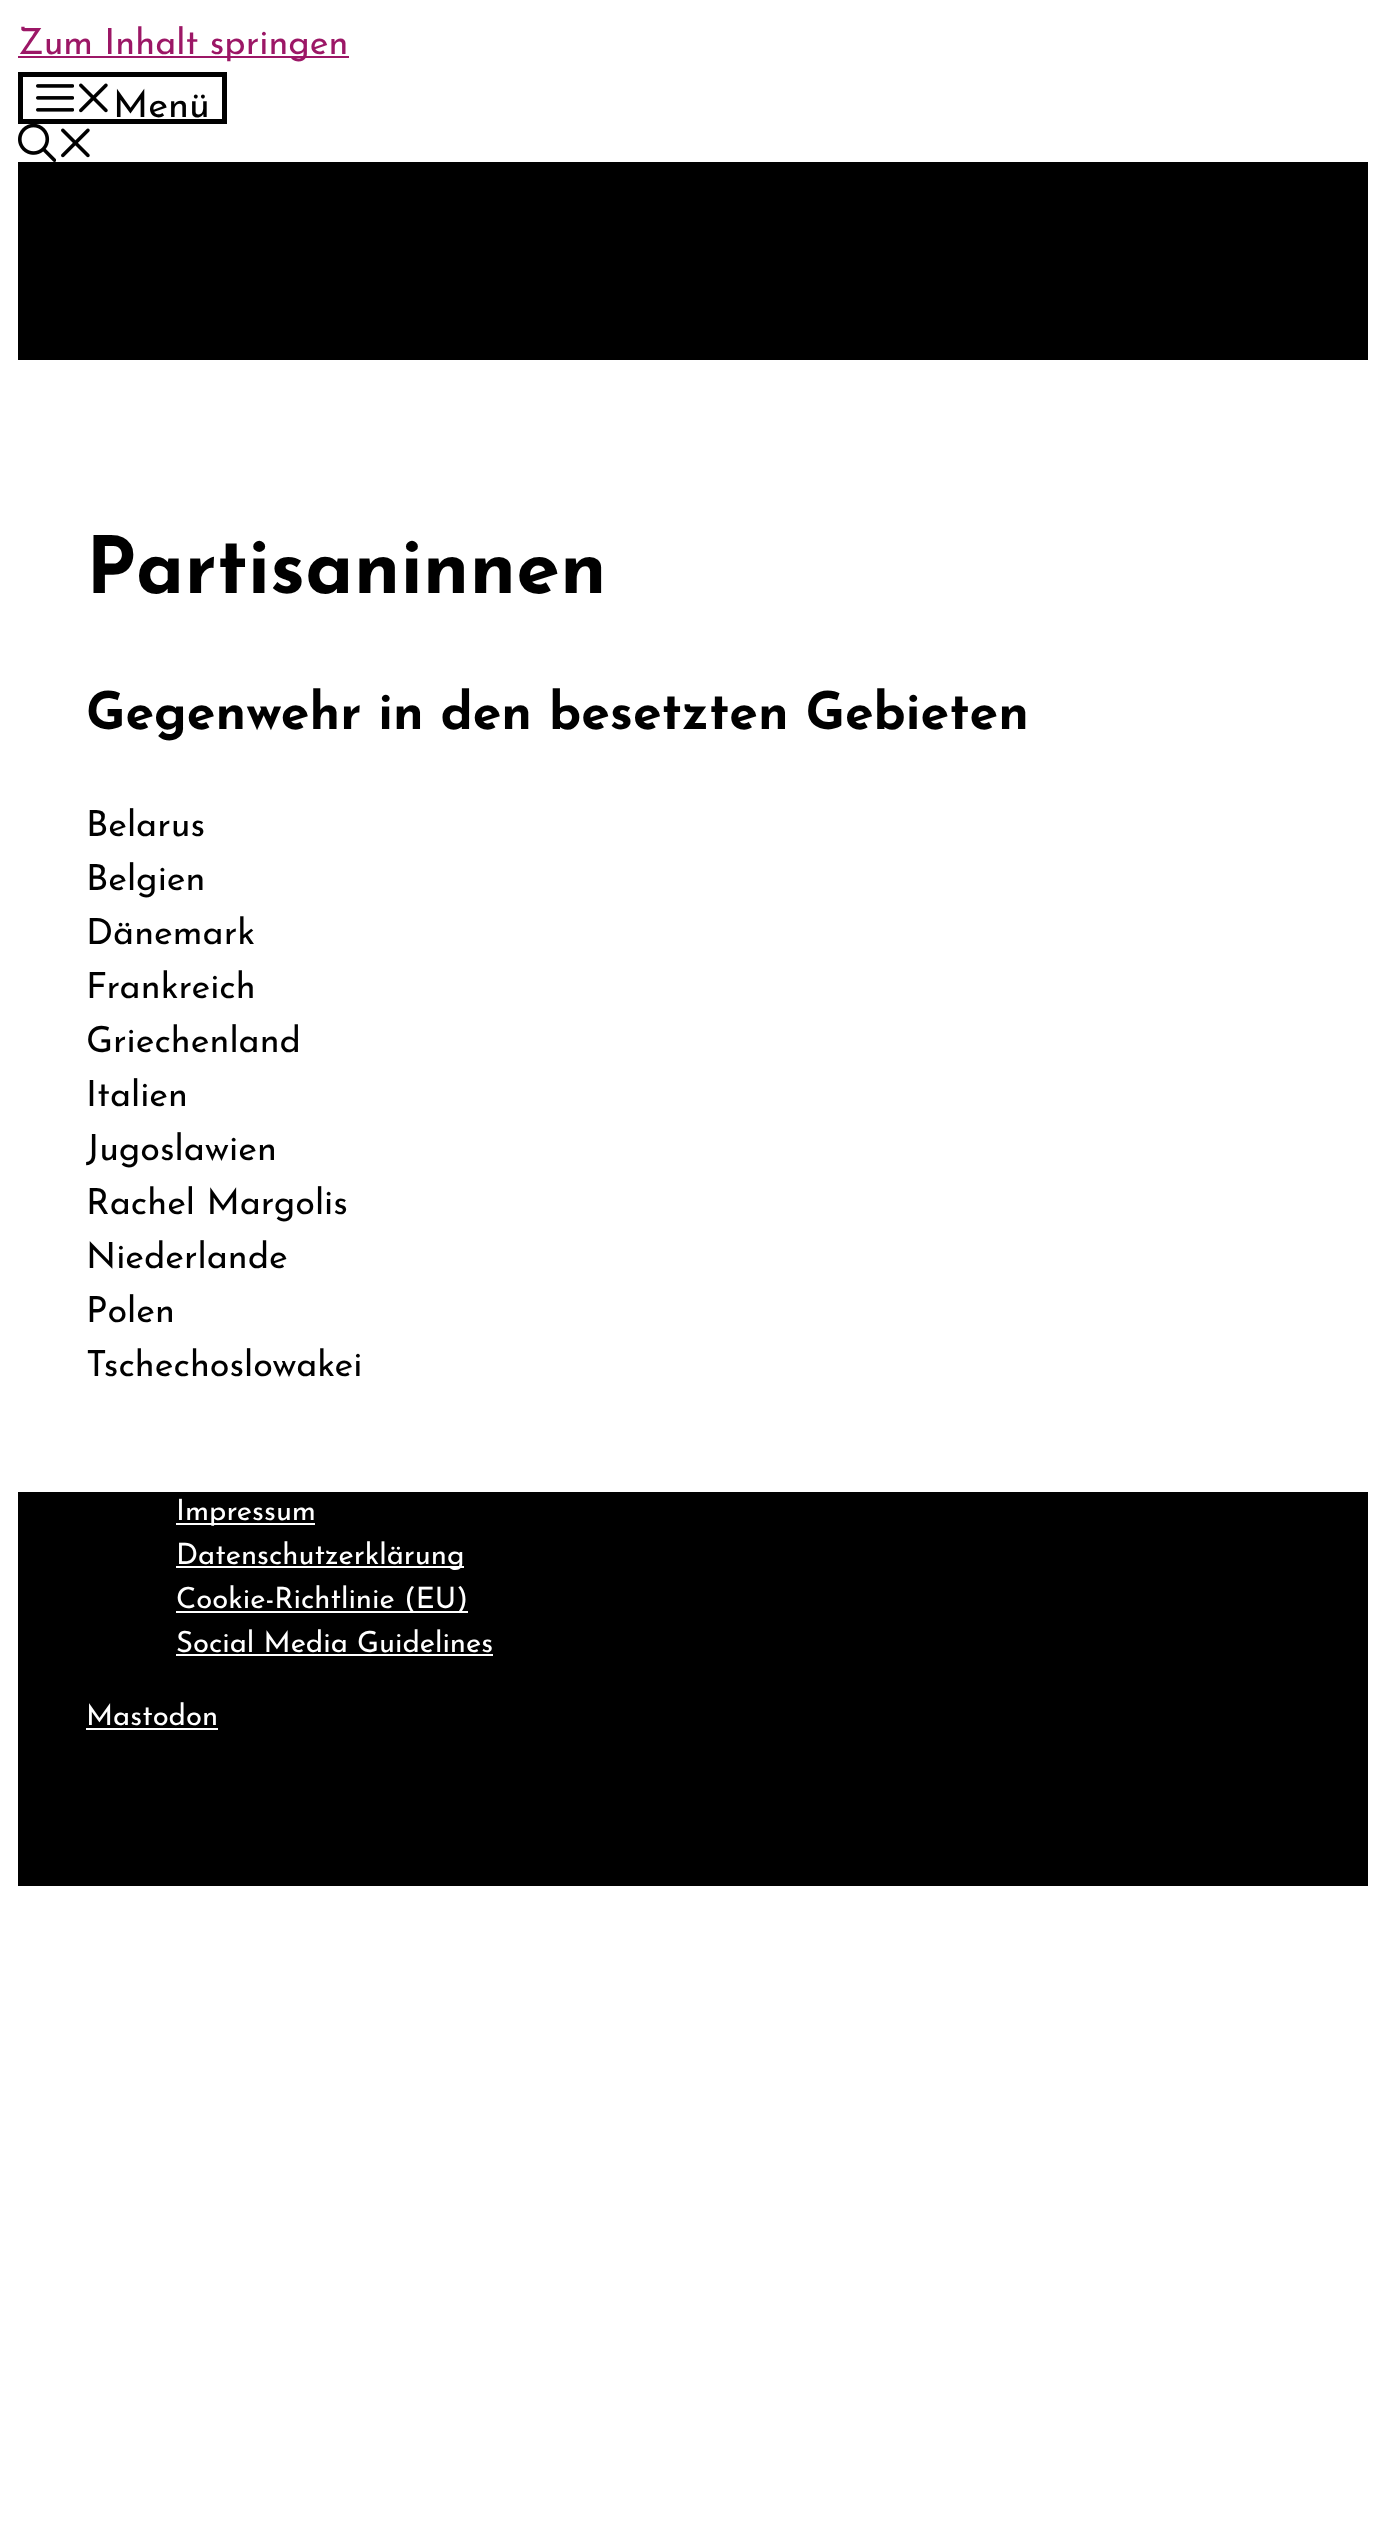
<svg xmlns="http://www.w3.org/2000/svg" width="1386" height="2539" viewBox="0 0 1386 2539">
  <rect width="100%" height="100%" fill="#ffffff"/>
  <rect x="18" y="56" width="331" height="2" fill="#9c1766"/>
  <text x="18" y="54" font-family="Josefin Sans" font-size="36" fill="#9c1766">Zum Inhalt springen</text>
  <rect x="20.5" y="74.5" width="204" height="47" fill="none" stroke="#000000" stroke-width="5"/>
  <image x="36" y="84" width="38" height="28" href="img1.png"/>
  <image x="79" y="83" width="29" height="30" href="img2.png"/>
  <text x="113" y="117" font-family="Josefin Sans" font-size="38" fill="#000000">Menü</text>
  <image x="18" y="124" width="38" height="38" href="img3.png"/>
  <image x="61" y="128" width="29" height="30" href="img2.png"/>
  <rect x="18" y="162" width="1350" height="198" fill="#000000"/>
  <text x="86" y="593" font-family="Josefin Sans" font-size="78.75" font-weight="bold" fill="#000000">Partisaninnen</text>
  <text x="86" y="729" font-family="Josefin Sans" font-size="51.75" font-weight="bold" fill="#000000">Gegenwehr in den besetzten Gebieten</text>
  <text x="86" y="836" font-family="Josefin Sans" font-size="36" fill="#000000">Belarus</text>
  <text x="86" y="890" font-family="Josefin Sans" font-size="36" fill="#000000">Belgien</text>
  <text x="86" y="944" font-family="Josefin Sans" font-size="36" fill="#000000">Dänemark</text>
  <text x="86" y="998" font-family="Josefin Sans" font-size="36" fill="#000000">Frankreich</text>
  <text x="86" y="1052" font-family="Josefin Sans" font-size="36" fill="#000000">Griechenland</text>
  <text x="86" y="1106" font-family="Josefin Sans" font-size="36" fill="#000000">Italien</text>
  <text x="86" y="1160" font-family="Josefin Sans" font-size="36" fill="#000000">Jugoslawien</text>
  <text x="86" y="1214" font-family="Josefin Sans" font-size="36" fill="#000000">Rachel Margolis</text>
  <text x="86" y="1268" font-family="Josefin Sans" font-size="36" fill="#000000">Niederlande</text>
  <text x="86" y="1322" font-family="Josefin Sans" font-size="36" fill="#000000">Polen</text>
  <text x="86" y="1376" font-family="Josefin Sans" font-size="36" fill="#000000">Tschechoslowakei</text>
  <rect x="18" y="1492" width="1350" height="394" fill="#000000"/>
  <rect x="176" y="1523" width="139" height="2" fill="#ffffff"/>
  <text x="176" y="1520" font-family="Josefin Sans" font-size="29.25" fill="#ffffff">Impressum</text>
  <rect x="176" y="1566" width="288" height="2" fill="#ffffff"/>
  <text x="176" y="1564" font-family="Josefin Sans" font-size="29.25" fill="#ffffff">Datenschutzerklärung</text>
  <rect x="176" y="1611" width="292" height="2" fill="#ffffff"/>
  <text x="176" y="1608" font-family="Josefin Sans" font-size="29.25" fill="#ffffff">Cookie-Richtlinie (EU)</text>
  <text x="176" y="1652" font-family="Josefin Sans" font-size="29.25" fill="#ffffff">Social Media Guidelines</text>
  <rect x="176" y="1654" width="317" height="2" fill="#ffffff"/>
  <text x="86" y="1725" font-family="Josefin Sans" font-size="29.25" fill="#ffffff">Mastodon</text>
  <rect x="86" y="1728" width="132" height="2" fill="#ffffff"/>
</svg>
